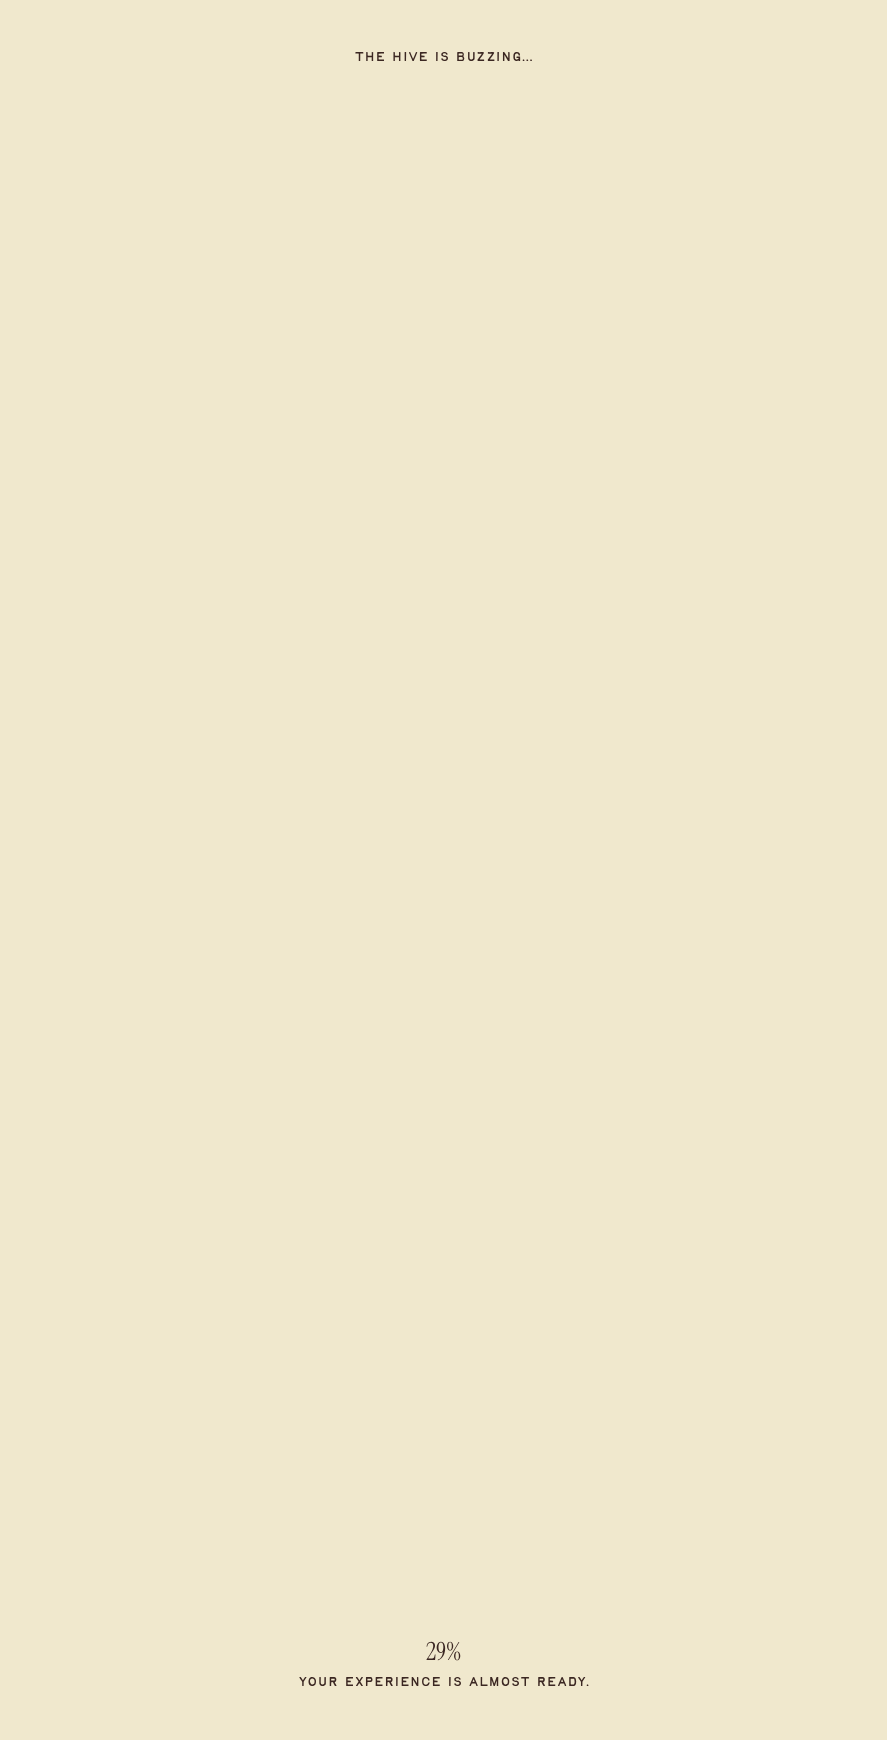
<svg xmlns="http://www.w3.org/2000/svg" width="887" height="1740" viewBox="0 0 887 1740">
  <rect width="100%" height="100%" fill="#f0e8cd"/>
  <text x="354" y="61" font-family="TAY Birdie" font-size="15" fill="#3b2722">The hive is buzzing...</text>
  <text x="426" y="1660" font-family="Instrument Serif" font-size="25" fill="#3b2722">29%</text>
  <text x="298" y="1686" font-family="TAY Birdie" font-size="15" fill="#3b2722">Your experience is almost ready.</text>
</svg>
